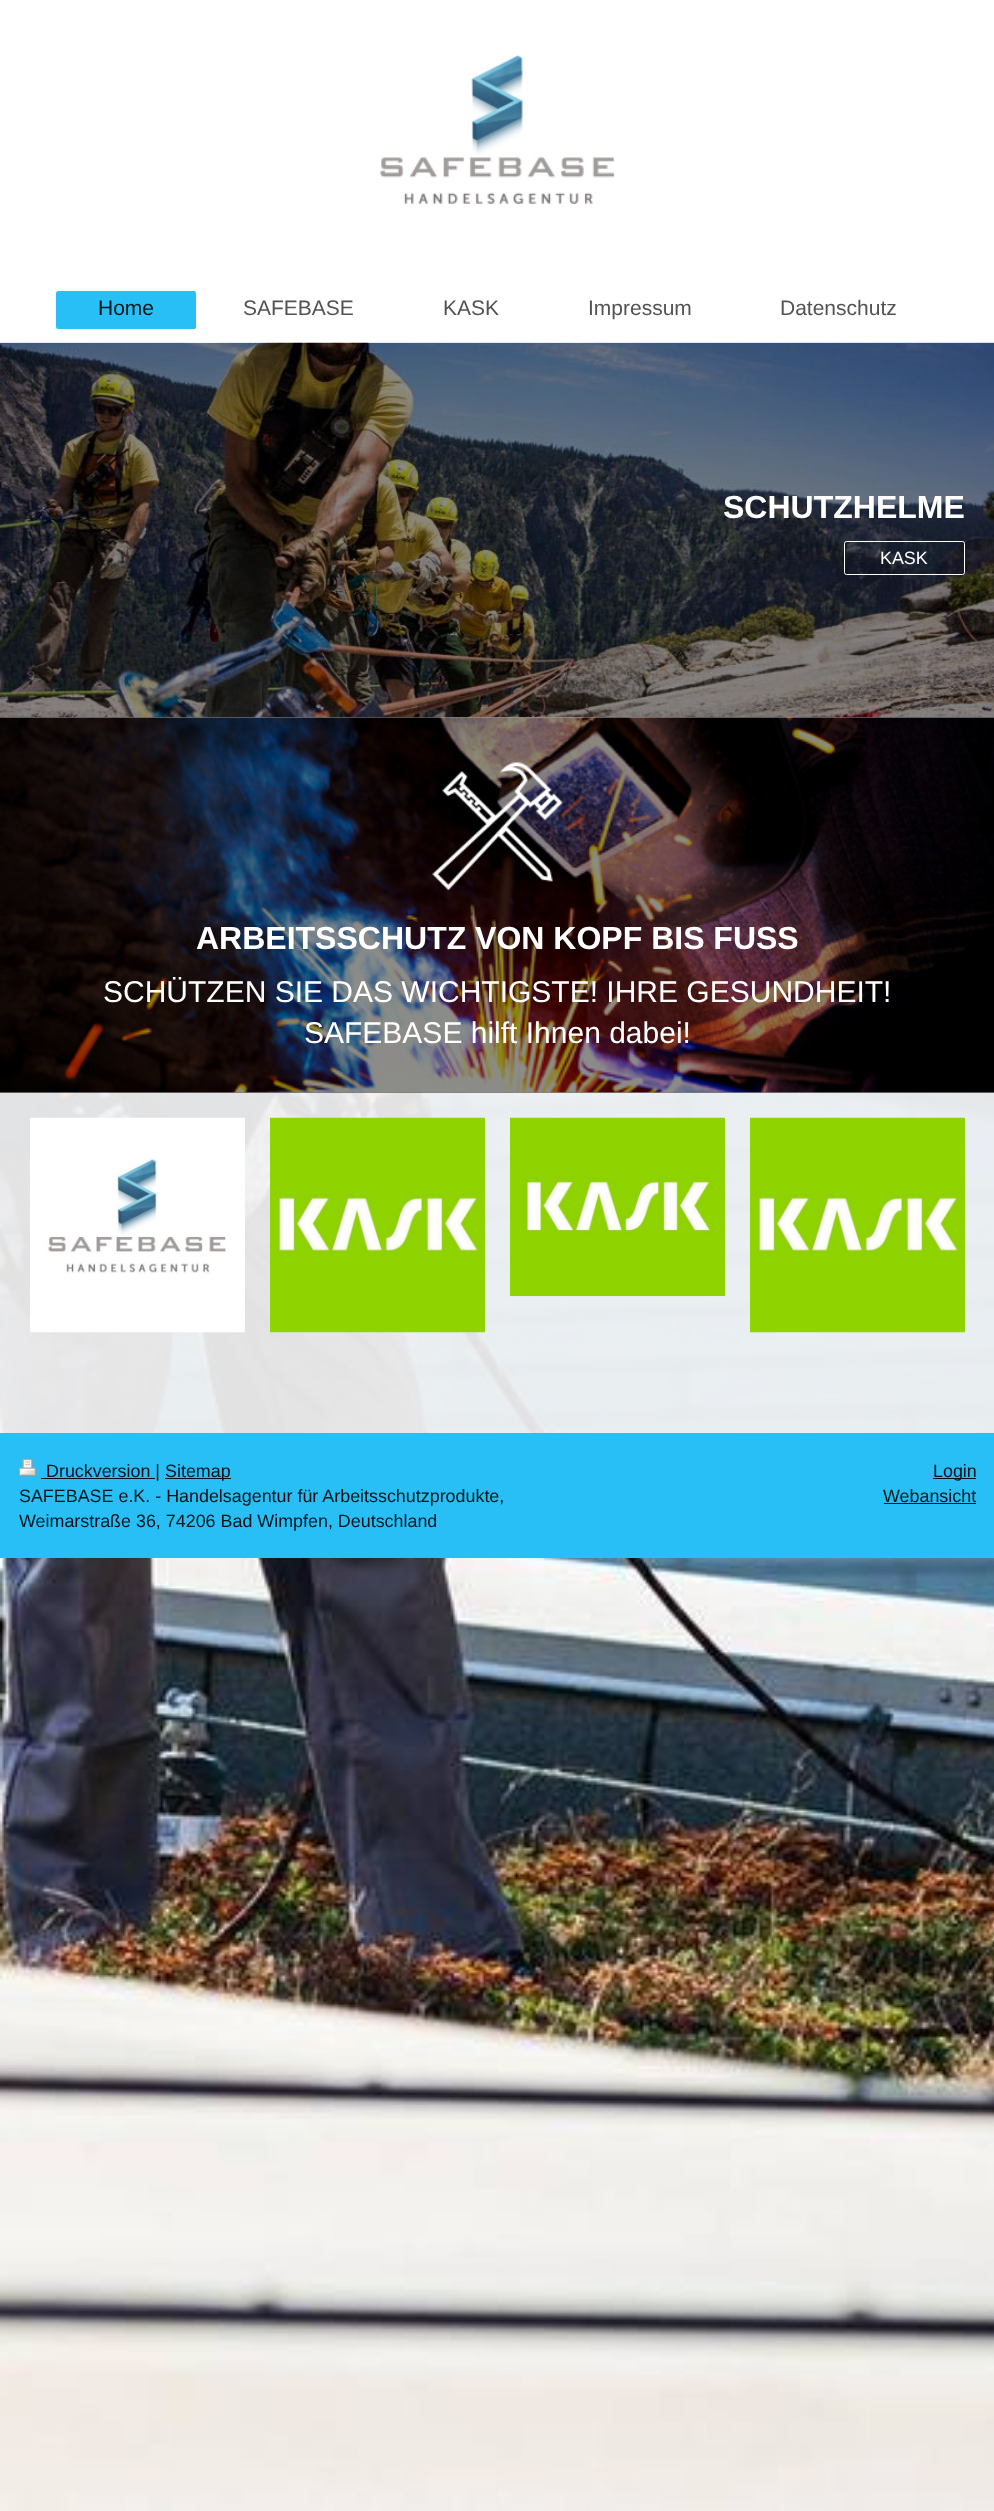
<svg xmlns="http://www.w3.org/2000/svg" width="994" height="2511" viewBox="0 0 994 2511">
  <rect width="100%" height="100%" fill="#ffffff"/>
  <image x="0" y="717" width="994" height="1794" href="img1.png"/>
  <image x="379" y="54" width="236" height="150" href="img2.png"/>
  <rect x="56" y="291" width="140" height="38" rx="2.5" fill="#27bff5"/>
  <rect x="58" y="328" width="137" height="1" fill="#27bff5"/>
  <text x="98" y="315" font-family="Liberation Sans" font-size="21" fill="#041319">Home</text>
  <text x="243" y="315" font-family="Liberation Sans" font-size="21" fill="#535353">SAFEBASE</text>
  <text x="443" y="315" font-family="Liberation Sans" font-size="21" fill="#535353">KASK</text>
  <text x="588" y="315" font-family="Liberation Sans" font-size="21" fill="#535353">Impressum</text>
  <text x="780" y="315" font-family="Liberation Sans" font-size="21" fill="#535353">Datenschutz</text>
  <rect x="0" y="717" width="994" height="716" fill="#fafafa" fill-opacity="0.9"/>
  <image x="0" y="342" width="994" height="376" href="img3.png"/>
  <rect x="0" y="343" width="994" height="375" fill="#000000" fill-opacity="0.45"/>
  <text x="723" y="518" font-family="Liberation Sans" font-size="32" font-weight="bold" fill="#ffffff">SCHUTZHELME</text>
  <rect x="844.5" y="541.5" width="120" height="33" rx="2" fill="none" stroke="#ffffff"/>
  <text x="880" y="564" font-family="Liberation Sans" font-size="17.9" fill="#ffffff">KASK</text>
  <image x="0" y="717" width="994" height="376" href="img4.png"/>
  <rect x="0" y="718" width="994" height="375" fill="#000000" fill-opacity="0.45"/>
  <image x="432" y="762" width="131" height="129" href="img5.png"/>
  <text x="196" y="949" font-family="Liberation Sans" font-size="32" font-weight="bold" fill="#ffffff">ARBEITSSCHUTZ VON KOPF BIS FUSS</text>
  <text x="103" y="1002" font-family="Liberation Sans" font-size="30" fill="#ffffff">SCHÜTZEN SIE DAS WICHTIGSTE! IHRE GESUNDHEIT!</text>
  <text x="304" y="1043" font-family="Liberation Sans" font-size="30" fill="#ffffff">SAFEBASE hilft Ihnen dabei!</text>
  <image x="30" y="1117" width="215" height="216" href="img6.png"/>
  <image x="270" y="1117" width="215" height="216" href="img7.png"/>
  <image x="510" y="1117" width="215" height="180" href="img8.png"/>
  <image x="750" y="1117" width="215" height="216" href="img9.png"/>
  <rect x="0" y="1433" width="994" height="125" fill="#27bff5"/>
  <image x="18" y="1458" width="19" height="19" href="img10.png"/>
  <rect x="41" y="1478" width="114" height="1" fill="#041319"/>
  <text x="46" y="1477" font-family="Liberation Sans" font-size="17.9" fill="#041319">Druckversion |</text>
  <rect x="165" y="1478" width="66" height="1" fill="#041319"/>
  <text x="165" y="1477" font-family="Liberation Sans" font-size="17.9" fill="#041319">Sitemap</text>
  <text x="19" y="1502" font-family="Liberation Sans" font-size="17.9" fill="#041319">SAFEBASE e.K. - Handelsagentur für Arbeitsschutzprodukte,</text>
  <text x="19" y="1527" font-family="Liberation Sans" font-size="17.9" fill="#041319">Weimarstraße 36, 74206 Bad Wimpfen, Deutschland</text>
  <rect x="933" y="1478" width="43" height="1" fill="#041319"/>
  <text x="933" y="1477" font-family="Liberation Sans" font-size="17.9" fill="#041319">Login</text>
  <text x="883" y="1502" font-family="Liberation Sans" font-size="17.9" fill="#041319">Webansicht</text>
  <rect x="884" y="1503" width="92" height="1" fill="#041319"/>
</svg>
